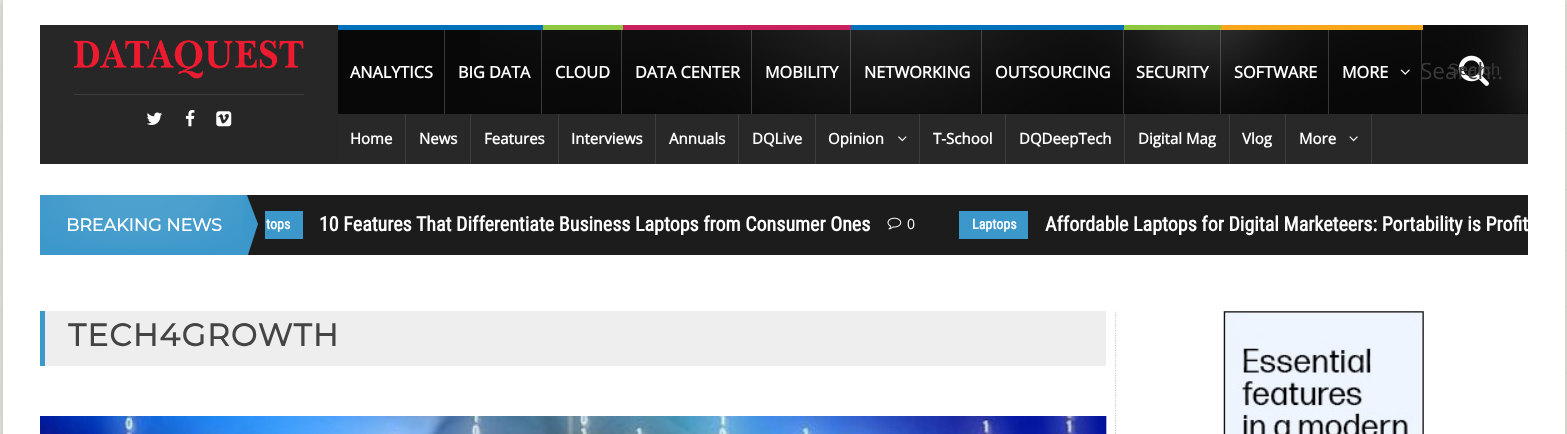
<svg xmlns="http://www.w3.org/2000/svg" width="1567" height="434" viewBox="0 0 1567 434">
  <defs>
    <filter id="blur1" x="-50%" y="-200%" width="200%" height="500%"><feGaussianBlur stdDeviation="6"/></filter>
    <clipPath id="clip1"><rect x="40" y="195" width="1488" height="60"/></clipPath>
  </defs>
  <rect width="100%" height="100%" fill="#ffffff"/>
  <image x="0" y="0" width="1567" height="434" href="img1.png"/>
  <rect x="3" y="0" width="1562" height="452" fill="#000000" fill-opacity="0.2" filter="url(#blur1)"/>
  <rect x="3" y="0" width="1562" height="434" fill="#ffffff"/>
  <rect x="40" y="25" width="298" height="139" fill="#272727"/>
  <rect x="74" y="94" width="230" height="1" fill="#3d3d3d"/>
  <image x="73" y="40" width="231" height="39" href="img2.png"/>
  <image x="146" y="112" width="16" height="13" href="img3.png"/>
  <image x="185" y="110" width="10" height="17" href="img4.png"/>
  <image x="216" y="111" width="16" height="16" href="img5.png"/>
  <rect x="338" y="25" width="1190" height="89" fill="#080808"/>
  <image x="480" y="25" width="1048" height="89" href="img6.png"/>
  <rect x="338" y="25" width="205" height="5" fill="#0072bc"/>
  <rect x="444" y="30" width="1" height="84" fill="#393939"/>
  <text x="350" y="78" font-family="Open Sans" font-size="16.25" font-weight="bold" fill="#ffffff">ANALYTICS</text>
  <rect x="541" y="30" width="1" height="84" fill="#ffffff" fill-opacity="0.2"/>
  <text x="458" y="78" font-family="Open Sans" font-size="16.25" font-weight="bold" fill="#ffffff">BIG DATA</text>
  <rect x="543" y="25" width="80" height="5" fill="#8dc63f"/>
  <rect x="621" y="30" width="1" height="84" fill="#ffffff" fill-opacity="0.2"/>
  <text x="555" y="78" font-family="Open Sans" font-size="16.25" font-weight="bold" fill="#ffffff">CLOUD</text>
  <rect x="623" y="25" width="228" height="5" fill="#c8215d"/>
  <rect x="751" y="30" width="1" height="84" fill="#ffffff" fill-opacity="0.2"/>
  <text x="635" y="78" font-family="Open Sans" font-size="16.25" font-weight="bold" fill="#ffffff">DATA CENTER</text>
  <rect x="850" y="30" width="1" height="84" fill="#ffffff" fill-opacity="0.2"/>
  <text x="765" y="78" font-family="Open Sans" font-size="16.25" font-weight="bold" fill="#ffffff">MOBILITY</text>
  <rect x="851" y="25" width="273" height="5" fill="#0072bc"/>
  <rect x="981" y="30" width="1" height="84" fill="#ffffff" fill-opacity="0.2"/>
  <text x="864" y="78" font-family="Open Sans" font-size="16.25" font-weight="bold" fill="#ffffff">NETWORKING</text>
  <rect x="1123" y="30" width="1" height="84" fill="#ffffff" fill-opacity="0.2"/>
  <text x="995" y="78" font-family="Open Sans" font-size="16.25" font-weight="bold" fill="#ffffff">OUTSOURCING</text>
  <rect x="1124" y="25" width="97" height="5" fill="#8dc63f"/>
  <rect x="1220" y="30" width="1" height="84" fill="#ffffff" fill-opacity="0.2"/>
  <text x="1136" y="78" font-family="Open Sans" font-size="16.25" font-weight="bold" fill="#ffffff">SECURITY</text>
  <rect x="1221" y="25" width="202" height="5" fill="#faa61a"/>
  <rect x="1328" y="30" width="1" height="84" fill="#ffffff" fill-opacity="0.2"/>
  <text x="1234" y="78" font-family="Open Sans" font-size="16.25" font-weight="bold" fill="#ffffff">SOFTWARE</text>
  <rect x="1421" y="30" width="1" height="84" fill="#ffffff" fill-opacity="0.2"/>
  <text x="1342" y="78" font-family="Open Sans" font-size="16.25" font-weight="bold" fill="#ffffff">MORE</text>
  <image x="1400" y="69" width="10" height="6" href="img7.png"/>
  <image x="1458" y="55" width="31" height="31" href="img8.png"/>
  <text x="1448" y="75" font-family="Liberation Sans" font-size="16.5" fill="#3a3a3a">Search</text>
  <text x="1420" y="79" font-family="Open Sans" font-size="22.5" fill="#3a3a3a">Search..</text>
  <rect x="338" y="114" width="1190" height="50" fill="#282828"/>
  <rect x="405" y="114" width="1" height="50" fill="#3e3e3e"/>
  <text x="350" y="144" font-family="Open Sans" font-size="15" font-weight="bold" fill="#ffffff">Home</text>
  <rect x="470" y="114" width="1" height="50" fill="#3e3e3e"/>
  <text x="419" y="144" font-family="Open Sans" font-size="15" font-weight="bold" fill="#ffffff">News</text>
  <rect x="558" y="114" width="1" height="50" fill="#3e3e3e"/>
  <text x="484" y="144" font-family="Open Sans" font-size="15" font-weight="bold" fill="#ffffff">Features</text>
  <rect x="655" y="114" width="1" height="50" fill="#3e3e3e"/>
  <text x="571" y="144" font-family="Open Sans" font-size="15" font-weight="bold" fill="#ffffff">Interviews</text>
  <rect x="738" y="114" width="1" height="50" fill="#3e3e3e"/>
  <text x="669" y="144" font-family="Open Sans" font-size="15" font-weight="bold" fill="#ffffff">Annuals</text>
  <rect x="815" y="114" width="1" height="50" fill="#3e3e3e"/>
  <text x="752" y="144" font-family="Open Sans" font-size="15" font-weight="bold" fill="#ffffff">DQLive</text>
  <rect x="919" y="114" width="1" height="50" fill="#3e3e3e"/>
  <text x="828" y="144" font-family="Open Sans" font-size="15" font-weight="bold" fill="#ffffff">Opinion</text>
  <image x="898" y="136" width="9" height="6" href="img9.png"/>
  <rect x="1005" y="114" width="1" height="50" fill="#3e3e3e"/>
  <text x="933" y="144" font-family="Open Sans" font-size="15" font-weight="bold" fill="#ffffff">T-School</text>
  <rect x="1124" y="114" width="1" height="50" fill="#3e3e3e"/>
  <text x="1019" y="144" font-family="Open Sans" font-size="15" font-weight="bold" fill="#ffffff">DQDeepTech</text>
  <rect x="1229" y="114" width="1" height="50" fill="#3e3e3e"/>
  <text x="1138" y="144" font-family="Open Sans" font-size="15" font-weight="bold" fill="#ffffff">Digital Mag</text>
  <rect x="1285" y="114" width="1" height="50" fill="#3e3e3e"/>
  <text x="1242" y="144" font-family="Open Sans" font-size="15" font-weight="bold" fill="#ffffff">Vlog</text>
  <rect x="1371" y="114" width="1" height="50" fill="#3e3e3e"/>
  <text x="1299" y="144" font-family="Open Sans" font-size="15" font-weight="bold" fill="#ffffff">More</text>
  <image x="1349" y="136" width="9" height="6" href="img10.png"/>
  <path d="M1115.5 195V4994" fill="none" stroke="#cccccc" stroke-width="1.2" stroke-dasharray="1.25 1.25"/>
  <rect x="1114" y="255" width="3" height="56" fill="#ffffff"/>
  <rect x="246" y="195" width="1282" height="60" fill="#1c1c1c"/>
  <rect x="40" y="195" width="204" height="60" fill="#3c98ca"/>
  <g clip-path="url(#clip1)">
    <path d="M245 190L258 224L246 261L233 228Z" fill="#3c98ca"/>
  </g>
  <text x="66" y="231" font-family="Montserrat" font-size="17.5" font-weight="bold" fill="#ffffff">BREAKING NEWS</text>
  <image x="40" y="195" width="204" height="54" href="img11.png"/>
  <rect x="265" y="211" width="38" height="28" fill="#3c98ca"/>
  <text x="266" y="229" font-family="Roboto Condensed" font-size="14" font-weight="bold" fill="#ffffff">tops</text>
  <text x="319" y="231" font-family="Roboto Condensed" font-size="20" font-weight="bold" fill="#ffffff">10 Features That Differentiate Business Laptops from Consumer Ones</text>
  <image x="887" y="217" width="15" height="13" href="img12.png"/>
  <text x="907" y="229" font-family="Open Sans" font-size="14" fill="#ffffff">0</text>
  <rect x="959" y="211" width="69" height="28" fill="#3c98ca"/>
  <text x="972" y="229" font-family="Roboto Condensed" font-size="14" font-weight="bold" fill="#ffffff">Laptops</text>
  <text x="1045" y="231" font-family="Roboto Condensed" font-size="20" font-weight="bold" fill="#ffffff">Affordable Laptops for Digital Marketeers: Portability is Profit</text>
  <rect x="45" y="311" width="1061" height="55" fill="#eeeeee"/>
  <rect x="40" y="311" width="5" height="55" fill="#3c98ca"/>
  <text x="68" y="346" font-family="Montserrat" font-size="31.25" font-weight="bold" letter-spacing="1.25" fill="#444444">TECH4GROWTH</text>
  <image x="40" y="416" width="1067" height="18" href="img13.png"/>
  <image x="1223" y="311" width="201" height="123" href="img14.png"/>
</svg>
